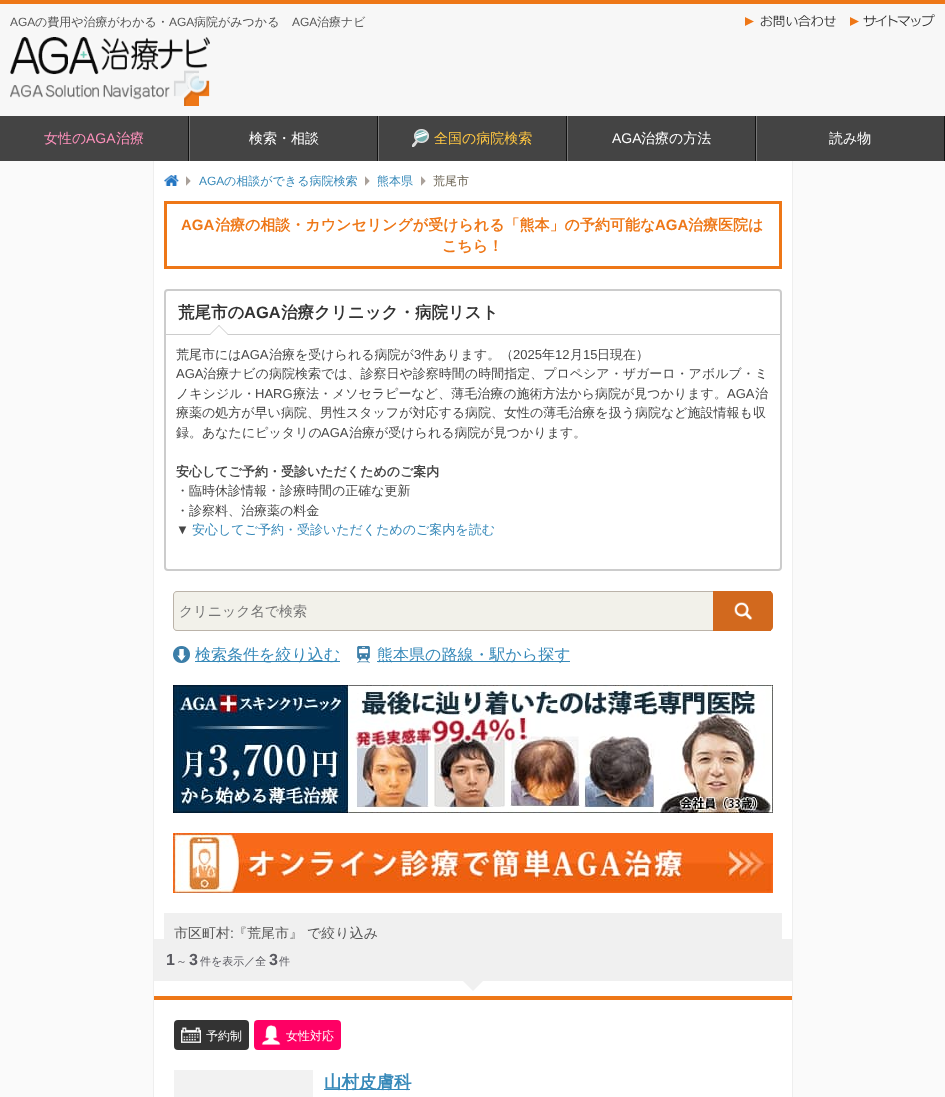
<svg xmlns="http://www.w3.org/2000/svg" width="945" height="1097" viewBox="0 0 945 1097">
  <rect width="100%" height="100%" fill="#fafafa"/>
  <rect x="0" y="4" width="945" height="112" fill="#f7f7f7"/>
  <rect x="0" y="0" width="945" height="4" fill="#ee7717"/>
  <text x="10" y="26" font-family="Liberation Sans" font-size="12" fill="#555555">AGA</text>
  <text x="35" y="26" font-family="WenQuanYi Zen Hei" font-size="12" font-weight="500" fill="#555555">の費用や治療がわかる・</text>
  <text x="169" y="26" font-family="Liberation Sans" font-size="12" fill="#555555">AGA</text>
  <text x="194" y="26" font-family="WenQuanYi Zen Hei" font-size="12" font-weight="500" fill="#555555">病院がみつかる</text>
  <text x="292" y="26" font-family="Liberation Sans" font-size="12" fill="#555555">AGA</text>
  <text x="317" y="26" font-family="WenQuanYi Zen Hei" font-size="12" font-weight="500" fill="#555555">治療ナビ</text>
  <image x="745" y="15" width="91" height="12" href="img1.png"/>
  <image x="850" y="14" width="85" height="13" href="img2.png"/>
  <image x="10" y="37" width="200" height="69" href="img3.png"/>
  <rect x="0" y="116" width="944" height="45" fill="#444444"/>
  <rect x="188" y="116" width="1" height="45" fill="#111111"/>
  <text x="44" y="143" font-family="WenQuanYi Zen Hei" font-size="14" font-weight="500" fill="#fd90bb">女性の</text>
  <text x="86" y="143" font-family="Liberation Sans" font-size="14" fill="#fd90bb">AGA</text>
  <text x="116" y="143" font-family="WenQuanYi Zen Hei" font-size="14" font-weight="500" fill="#fd90bb">治療</text>
  <rect x="377" y="116" width="1" height="45" fill="#111111"/>
  <rect x="189" y="116" width="1" height="45" fill="#777777"/>
  <text x="249" y="143" font-family="WenQuanYi Zen Hei" font-size="14" font-weight="500" fill="#ffffff">検索・相談</text>
  <rect x="566" y="116" width="1" height="45" fill="#111111"/>
  <rect x="378" y="116" width="1" height="45" fill="#777777"/>
  <image x="412" y="129" width="17" height="18" href="img4.png"/>
  <text x="434" y="143" font-family="WenQuanYi Zen Hei" font-size="14" font-weight="500" fill="#ffc742">全国の病院検索</text>
  <rect x="755" y="116" width="1" height="45" fill="#111111"/>
  <rect x="567" y="116" width="1" height="45" fill="#777777"/>
  <text x="612" y="143" font-family="Liberation Sans" font-size="14" fill="#ffffff">AGA</text>
  <text x="641" y="143" font-family="WenQuanYi Zen Hei" font-size="14" font-weight="500" fill="#ffffff">治療の方法</text>
  <rect x="944" y="116" width="1" height="45" fill="#111111"/>
  <rect x="756" y="116" width="1" height="45" fill="#777777"/>
  <text x="829" y="143" font-family="WenQuanYi Zen Hei" font-size="14" font-weight="500" fill="#ffffff">読み物</text>
  <rect x="154" y="161" width="638" height="936" fill="#ffffff"/>
  <rect x="792" y="161" width="1" height="936" fill="#eeeeee"/>
  <rect x="153" y="161" width="1" height="936" fill="#eeeeee"/>
  <image x="164" y="175" width="15" height="11" href="img5.png"/>
  <image x="186" y="176" width="5" height="10" href="img6.png"/>
  <text x="199" y="185" font-family="Liberation Sans" font-size="12" fill="#3789b9">AGA</text>
  <text x="224" y="185" font-family="WenQuanYi Zen Hei" font-size="12" font-weight="500" fill="#3789b9">の相談ができる病院検索</text>
  <image x="365" y="176" width="5" height="10" href="img6.png"/>
  <text x="377" y="185" font-family="WenQuanYi Zen Hei" font-size="12" font-weight="500" fill="#3789b9">熊本県</text>
  <image x="421" y="176" width="5" height="10" href="img6.png"/>
  <text x="433" y="185" font-family="WenQuanYi Zen Hei" font-size="12" font-weight="500" fill="#6a6252">荒尾市</text>
  <rect x="165.5" y="202.5" width="615" height="65" fill="none" stroke="#ee7717" stroke-width="3"/>
  <text x="181" y="230" font-family="Liberation Sans" font-size="15" font-weight="bold" fill="#ee7717">AGA</text>
  <text x="215" y="230" font-family="WenQuanYi Zen Hei" font-size="15" font-weight="bold" fill="#ee7717">治療の相談・カウンセリングが受けられる「熊本」の予約可能な</text>
  <text x="655" y="230" font-family="Liberation Sans" font-size="15" font-weight="bold" fill="#ee7717">AGA</text>
  <text x="688" y="230" font-family="WenQuanYi Zen Hei" font-size="15" font-weight="bold" fill="#ee7717">治療医院は</text>
  <text x="442" y="251" font-family="WenQuanYi Zen Hei" font-size="15" font-weight="bold" fill="#ee7717">こちら！</text>
  <rect x="165" y="290" width="616" height="280" rx="3" fill="none" stroke="#cccccc" stroke-width="2"/>
  <text x="178" y="318" font-family="WenQuanYi Zen Hei" font-size="16.5" font-weight="bold" fill="#333333">荒尾市の</text>
  <text x="244" y="318" font-family="Liberation Sans" font-size="16.5" font-weight="bold" fill="#333333">AGA</text>
  <text x="281" y="318" font-family="WenQuanYi Zen Hei" font-size="16.5" font-weight="bold" fill="#333333">治療クリニック・病院リスト</text>
  <rect x="166" y="334" width="614" height="1" fill="#cccccc"/>
  <path d="M210 334L219 325L228 334L219 343Z" fill="#ffffff"/>
  <path d="M210 334L219 325L219.5 325.5L210.5 334.5Z" fill="#cccccc"/>
  <path d="M218.5 325.5L219 325L228 334L227.5 334.5Z" fill="#cccccc"/>
  <text x="176" y="359" font-family="WenQuanYi Zen Hei" font-size="13" font-weight="500" fill="#464646">荒尾市には</text>
  <text x="241" y="359" font-family="Liberation Sans" font-size="13" fill="#464646">AGA</text>
  <text x="269" y="359" font-family="WenQuanYi Zen Hei" font-size="13" font-weight="500" fill="#464646">治療を受けられる病院が</text>
  <text x="414" y="359" font-family="Liberation Sans" font-size="13" fill="#464646">3</text>
  <text x="421" y="359" font-family="WenQuanYi Zen Hei" font-size="13" font-weight="500" fill="#464646">件あります。（</text>
  <text x="513" y="359" font-family="Liberation Sans" font-size="13" fill="#464646">2025</text>
  <text x="542" y="359" font-family="WenQuanYi Zen Hei" font-size="13" font-weight="500" fill="#464646">年</text>
  <text x="555" y="359" font-family="Liberation Sans" font-size="13" fill="#464646">12</text>
  <text x="570" y="359" font-family="WenQuanYi Zen Hei" font-size="13" font-weight="500" fill="#464646">月</text>
  <text x="583" y="359" font-family="Liberation Sans" font-size="13" fill="#464646">15</text>
  <text x="597" y="359" font-family="WenQuanYi Zen Hei" font-size="13" font-weight="500" fill="#464646">日現在）</text>
  <text x="176" y="378" font-family="Liberation Sans" font-size="13" fill="#464646">AGA</text>
  <text x="203" y="378" font-family="WenQuanYi Zen Hei" font-size="13" font-weight="500" fill="#464646">治療ナビの病院検索では、診察日や診察時間の時間指定、プロペシア・ザガーロ・アボルブ・ミ</text>
  <text x="176" y="398" font-family="WenQuanYi Zen Hei" font-size="13" font-weight="500" fill="#464646">ノキシジル・</text>
  <text x="255" y="398" font-family="Liberation Sans" font-size="13" fill="#464646">HARG</text>
  <text x="293" y="398" font-family="WenQuanYi Zen Hei" font-size="13" font-weight="500" fill="#464646">療法・メソセラピーなど、薄毛治療の施術方法から病院が見つかります。</text>
  <text x="727" y="398" font-family="Liberation Sans" font-size="13" fill="#464646">AGA</text>
  <text x="755" y="398" font-family="WenQuanYi Zen Hei" font-size="13" font-weight="500" fill="#464646">治</text>
  <text x="176" y="417" font-family="WenQuanYi Zen Hei" font-size="13" font-weight="500" fill="#464646">療薬の処方が早い病院、男性スタッフが対応する病院、女性の薄毛治療を扱う病院など施設情報も収</text>
  <text x="176" y="437" font-family="WenQuanYi Zen Hei" font-size="13" font-weight="500" fill="#464646">録。あなたにピッタリの</text>
  <text x="321" y="437" font-family="Liberation Sans" font-size="13" fill="#464646">AGA</text>
  <text x="349" y="437" font-family="WenQuanYi Zen Hei" font-size="13" font-weight="500" fill="#464646">治療が受けられる病院が見つかります。</text>
  <text x="176" y="476" font-family="WenQuanYi Zen Hei" font-size="13" font-weight="bold" fill="#464646">安心してご予約・受診いただくためのご案内</text>
  <text x="176" y="495" font-family="WenQuanYi Zen Hei" font-size="13" font-weight="500" fill="#464646">・臨時休診情報・診療時間の正確な更新</text>
  <text x="176" y="515" font-family="WenQuanYi Zen Hei" font-size="13" font-weight="500" fill="#464646">・診察料、治療薬の料金</text>
  <text x="176" y="534" font-family="Liberation Sans" font-size="13" fill="#464646">▼</text>
  <text x="192" y="534" font-family="WenQuanYi Zen Hei" font-size="13" font-weight="500" fill="#3789b9">安心してご予約・受診いただくためのご案内を読む</text>
  <path d="M177 591H713V631H177C175 631 173 629 173 627V595C173 593 175 591 177 591Z" fill="#f2f1ea"/>
  <path d="M177 591H713V631H177C175 631 173 629 173 627V595C173 593 175 591 177 591ZM177 592H713V630H177C175 630 174 629 174 627V595C174 593 175 592 177 592Z" fill="#bbb3a9" fill-rule="evenodd"/>
  <text x="179" y="616" font-family="WenQuanYi Zen Hei" font-size="14" font-weight="500" fill="#757575">クリニック名で検索</text>
  <path d="M713 591H769C771 591 773 593 773 595V627C773 629 771 631 769 631H713Z" fill="#d2691e"/>
  <image x="734" y="602" width="19" height="18" href="img7.png"/>
  <rect x="769" y="591" width="2" height="1" fill="#d2691e"/>
  <rect x="769" y="630" width="2" height="1" fill="#d2691e"/>
  <image x="173" y="646" width="17" height="17" href="img8.png"/>
  <rect x="195" y="661" width="145" height="1" fill="#3789b9"/>
  <text x="195" y="660" font-family="WenQuanYi Zen Hei" font-size="16" font-weight="500" fill="#3789b9">検索条件を絞り込む</text>
  <image x="357" y="646" width="13" height="17" href="img9.png"/>
  <rect x="377" y="661" width="193" height="1" fill="#3789b9"/>
  <text x="377" y="660" font-family="WenQuanYi Zen Hei" font-size="16" font-weight="500" fill="#3789b9">熊本県の路線・駅から探す</text>
  <image x="173" y="685" width="600" height="128" href="img10.png"/>
  <image x="173" y="833" width="600" height="60" href="img11.png"/>
  <rect x="164" y="913" width="618" height="26" fill="#f0f0f0"/>
  <text x="174" y="938" font-family="WenQuanYi Zen Hei" font-size="14" font-weight="500" fill="#555555">市区町村</text>
  <text x="230" y="938" font-family="Liberation Sans" font-size="14" fill="#555555">:</text>
  <text x="233" y="938" font-family="WenQuanYi Zen Hei" font-size="14" font-weight="500" fill="#555555">『荒尾市』</text>
  <text x="307" y="938" font-family="WenQuanYi Zen Hei" font-size="14" font-weight="500" fill="#555555">で絞り込み</text>
  <rect x="154" y="939" width="638" height="42" fill="#f0f0f0"/>
  <text x="166" y="965" font-family="Liberation Sans" font-size="16" font-weight="bold" fill="#595960">1</text>
  <text x="176" y="965" font-family="WenQuanYi Zen Hei" font-size="11" font-weight="500" fill="#595960">～</text>
  <text x="189" y="965" font-family="Liberation Sans" font-size="16" font-weight="bold" fill="#595960">3</text>
  <text x="200" y="965" font-family="WenQuanYi Zen Hei" font-size="11" font-weight="500" fill="#595960">件を表示／全</text>
  <text x="269" y="965" font-family="Liberation Sans" font-size="16" font-weight="bold" fill="#595960">3</text>
  <text x="279" y="965" font-family="WenQuanYi Zen Hei" font-size="11" font-weight="500" fill="#595960">件</text>
  <path d="M463 981H483L473 991Z" fill="#f0f0f0"/>
  <rect x="154" y="996" width="638" height="4" fill="#ee7717"/>
  <rect x="174" y="1020" width="75" height="30" rx="4" fill="#333333"/>
  <image x="181" y="1027" width="20" height="16" href="img12.png"/>
  <text x="206" y="1040" font-family="WenQuanYi Zen Hei" font-size="12" font-weight="500" fill="#ffffff">予約制</text>
  <rect x="254" y="1020" width="87" height="30" rx="4" fill="#fe0064"/>
  <image x="261" y="1025" width="20" height="20" href="img13.png"/>
  <text x="286" y="1040" font-family="WenQuanYi Zen Hei" font-size="12" font-weight="500" fill="#ffffff">女性対応</text>
  <rect x="174" y="1070" width="139" height="27" fill="#f2f2f2"/>
  <rect x="324" y="1089" width="86" height="1" fill="#3789b9"/>
  <text x="324" y="1088" font-family="WenQuanYi Zen Hei" font-size="17.5" font-weight="bold" fill="#3789b9">山村皮膚科</text>
</svg>
